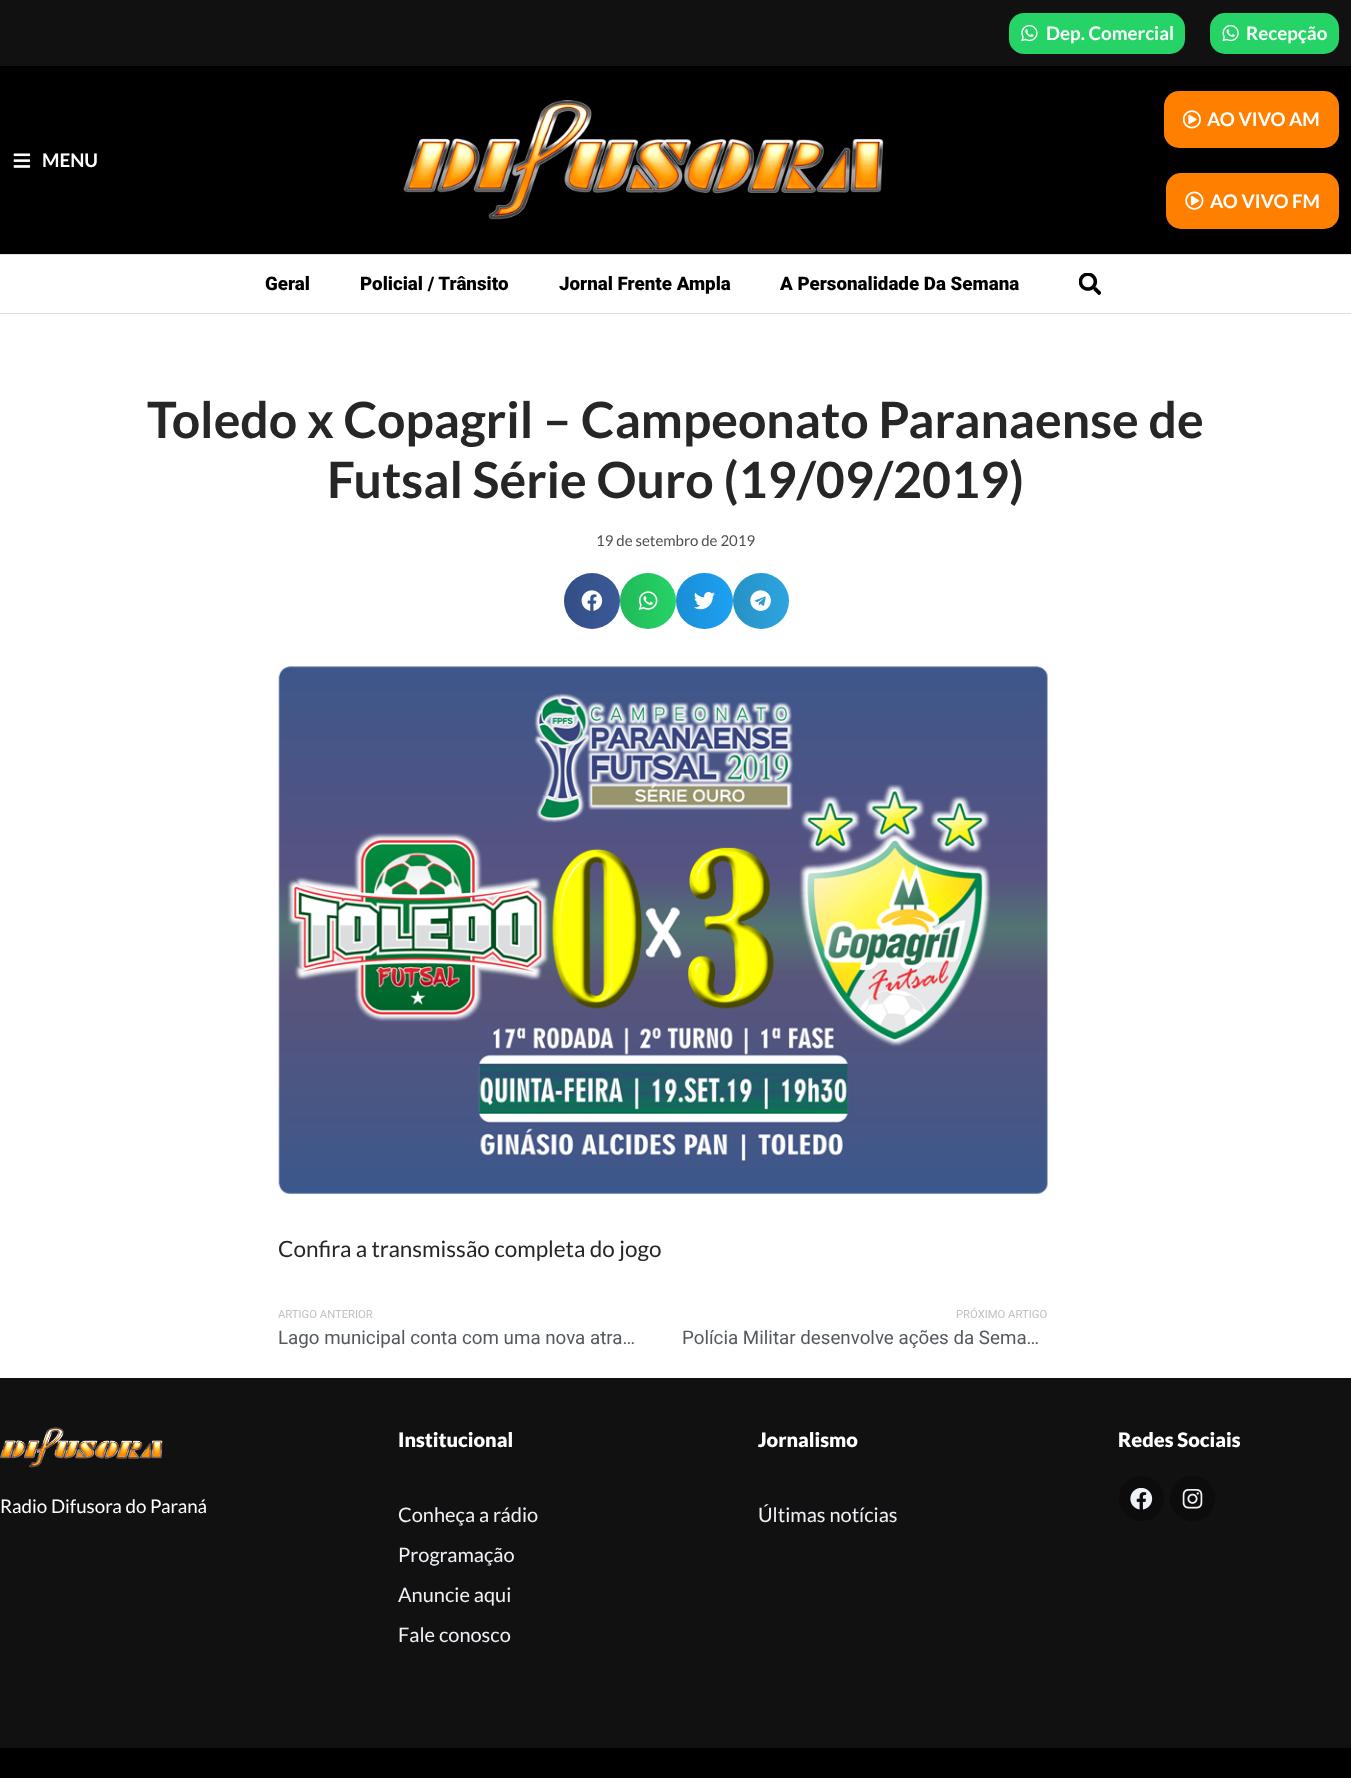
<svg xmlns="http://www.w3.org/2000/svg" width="1351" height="1778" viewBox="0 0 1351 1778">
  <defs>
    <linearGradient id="g1" gradientUnits="userSpaceOnUse" x1="564" y1="601" x2="620" y2="601"><stop offset="0" stop-color="#000000" stop-opacity="0.12"/><stop offset="1" stop-color="#000000" stop-opacity="0"/></linearGradient>
    <linearGradient id="g2" gradientUnits="userSpaceOnUse" x1="620" y1="601" x2="676" y2="601"><stop offset="0" stop-color="#000000" stop-opacity="0.12"/><stop offset="1" stop-color="#000000" stop-opacity="0"/></linearGradient>
    <linearGradient id="g3" gradientUnits="userSpaceOnUse" x1="676" y1="601" x2="733" y2="601"><stop offset="0" stop-color="#000000" stop-opacity="0.12"/><stop offset="1" stop-color="#000000" stop-opacity="0"/></linearGradient>
    <linearGradient id="g4" gradientUnits="userSpaceOnUse" x1="733" y1="601" x2="789" y2="601"><stop offset="0" stop-color="#000000" stop-opacity="0.12"/><stop offset="1" stop-color="#000000" stop-opacity="0"/></linearGradient>
  </defs>
  <rect width="100%" height="100%" fill="#ffffff"/>
  <rect x="0" y="0" width="1351" height="66" fill="#111111"/>
  <rect x="1009" y="13" width="176" height="41" rx="15" fill="#25d366"/>
  <image x="1021" y="24" width="17" height="18" href="img1.png"/>
  <text x="1046" y="40" font-family="Lato" font-size="18.75" font-weight="bold" fill="#ffffff">Dep. Comercial</text>
  <rect x="1210" y="13" width="129" height="41" rx="15" fill="#25d366"/>
  <image x="1222" y="24" width="17" height="18" href="img2.png"/>
  <text x="1246" y="40" font-family="Lato" font-size="18.75" font-weight="bold" fill="#ffffff">Recepção</text>
  <rect x="0" y="66" width="1351" height="188" fill="#000000"/>
  <image x="13" y="153" width="18" height="15" href="img3.png"/>
  <text x="42" y="167" font-family="Lato" font-size="18.75" font-weight="bold" fill="#ffffff">MENU</text>
  <image x="403" y="100" width="481" height="120" href="img4.png"/>
  <rect x="1164" y="91" width="175" height="57" rx="15" fill="#ff7f00"/>
  <image x="1183" y="110" width="18" height="19" href="img5.png"/>
  <text x="1207" y="126" font-family="Lato" font-size="18.75" font-weight="bold" fill="#ffffff">AO VIVO AM</text>
  <rect x="1166" y="173" width="173" height="56" rx="15" fill="#ff7f00"/>
  <image x="1185" y="191" width="19" height="19" href="img6.png"/>
  <text x="1210" y="208" font-family="Lato" font-size="18.75" font-weight="bold" fill="#ffffff">AO VIVO FM</text>
  <rect x="0" y="254" width="1351" height="1" fill="#e1e0e0"/>
  <rect x="0" y="313" width="1351" height="1" fill="#e1e0e0"/>
  <text x="265" y="290" font-family="Roboto" font-size="18.75" font-weight="900" fill="#000000">Geral</text>
  <text x="360" y="290" font-family="Roboto" font-size="18.75" font-weight="900" fill="#000000">Policial / Trânsito</text>
  <text x="559" y="290" font-family="Roboto" font-size="18.75" font-weight="900" fill="#000000">Jornal Frente Ampla</text>
  <text x="780" y="290" font-family="Roboto" font-size="18.75" font-weight="900" fill="#000000">A Personalidade Da Semana</text>
  <image x="1079" y="273" width="22" height="22" href="img7.png"/>
  <text x="147" y="438" font-family="Lato" font-size="50" font-weight="bold" fill="#262626">Toledo x Copagril – Campeonato Paranaense de</text>
  <text x="327" y="498" font-family="Lato" font-size="50" font-weight="bold" fill="#262626">Futsal Série Ouro (19/09/2019)</text>
  <text x="596" y="546" font-family="Lato" font-size="15" fill="#4d4d4d">19 de setembro de 2019</text>
  <circle cx="592" cy="601" r="28" fill="#3b5998"/>
  <circle cx="592" cy="601" r="28" fill="url(#g1)"/>
  <image x="581" y="590" width="22" height="21" href="img8.png"/>
  <circle cx="648" cy="601" r="28" fill="#25d366"/>
  <circle cx="648" cy="601" r="28" fill="url(#g2)"/>
  <image x="638" y="591" width="20" height="19" href="img9.png"/>
  <rect x="676" y="573" width="57" height="56" rx="28" fill="#1da1f2"/>
  <rect x="676" y="573" width="57" height="56" rx="28" fill="url(#g3)"/>
  <image x="694" y="592" width="21" height="18" href="img10.png"/>
  <circle cx="761" cy="601" r="28" fill="#2ca5e0"/>
  <circle cx="761" cy="601" r="28" fill="url(#g4)"/>
  <image x="750" y="590" width="21" height="21" href="img11.png"/>
  <image x="278" y="666" width="770" height="528" href="img12.png"/>
  <text x="278" y="1257" font-family="Lato" font-size="22.5" fill="#262626">Confira a transmissão completa do jogo</text>
  <text x="278" y="1318" font-family="Roboto" font-size="11.25" fill="#c1c1c1">ARTIGO ANTERIOR</text>
  <text x="278" y="1344" font-family="Roboto" font-size="18.75" fill="#54595f">Lago municipal conta com uma nova atra…</text>
  <text x="956" y="1318" font-family="Roboto" font-size="11.25" fill="#c1c1c1">PRÓXIMO ARTIGO</text>
  <text x="682" y="1344" font-family="Roboto" font-size="18.75" fill="#54595f">Polícia Militar desenvolve ações da Sema…</text>
  <rect x="0" y="1378" width="1351" height="370" fill="#111111"/>
  <text x="398" y="1447" font-family="Lato" font-size="20" font-weight="900" fill="#ffffff">Institucional</text>
  <text x="398" y="1522" font-family="Lato" font-size="20" fill="#eef1f5">Conheça a rádio</text>
  <text x="398" y="1562" font-family="Lato" font-size="20" fill="#eef1f5">Programação</text>
  <text x="398" y="1602" font-family="Lato" font-size="20" fill="#eef1f5">Anuncie aqui</text>
  <text x="398" y="1642" font-family="Lato" font-size="20" fill="#eef1f5">Fale conosco</text>
  <text x="758" y="1447" font-family="Lato" font-size="20" font-weight="900" fill="#ffffff">Jornalismo</text>
  <text x="758" y="1522" font-family="Lato" font-size="20" fill="#eef1f5">Últimas notícias</text>
  <text x="1118" y="1447" font-family="Lato" font-size="20" font-weight="900" fill="#ffffff">Redes Sociais</text>
  <circle cx="1141.5" cy="1498.5" r="22.5" fill="#0c0c0c"/>
  <image x="1130" y="1488" width="23" height="22" href="img13.png"/>
  <circle cx="1192.5" cy="1498.5" r="22.5" fill="#0c0c0c"/>
  <image x="1182" y="1489" width="21" height="20" href="img14.png"/>
  <image x="0" y="1427" width="163" height="41" href="img15.png"/>
  <text x="0" y="1513" font-family="Lato" font-size="18.75" fill="#ffffff">Radio Difusora do Paraná</text>
  <rect x="0" y="1748" width="1351" height="30" fill="#000000"/>
</svg>
